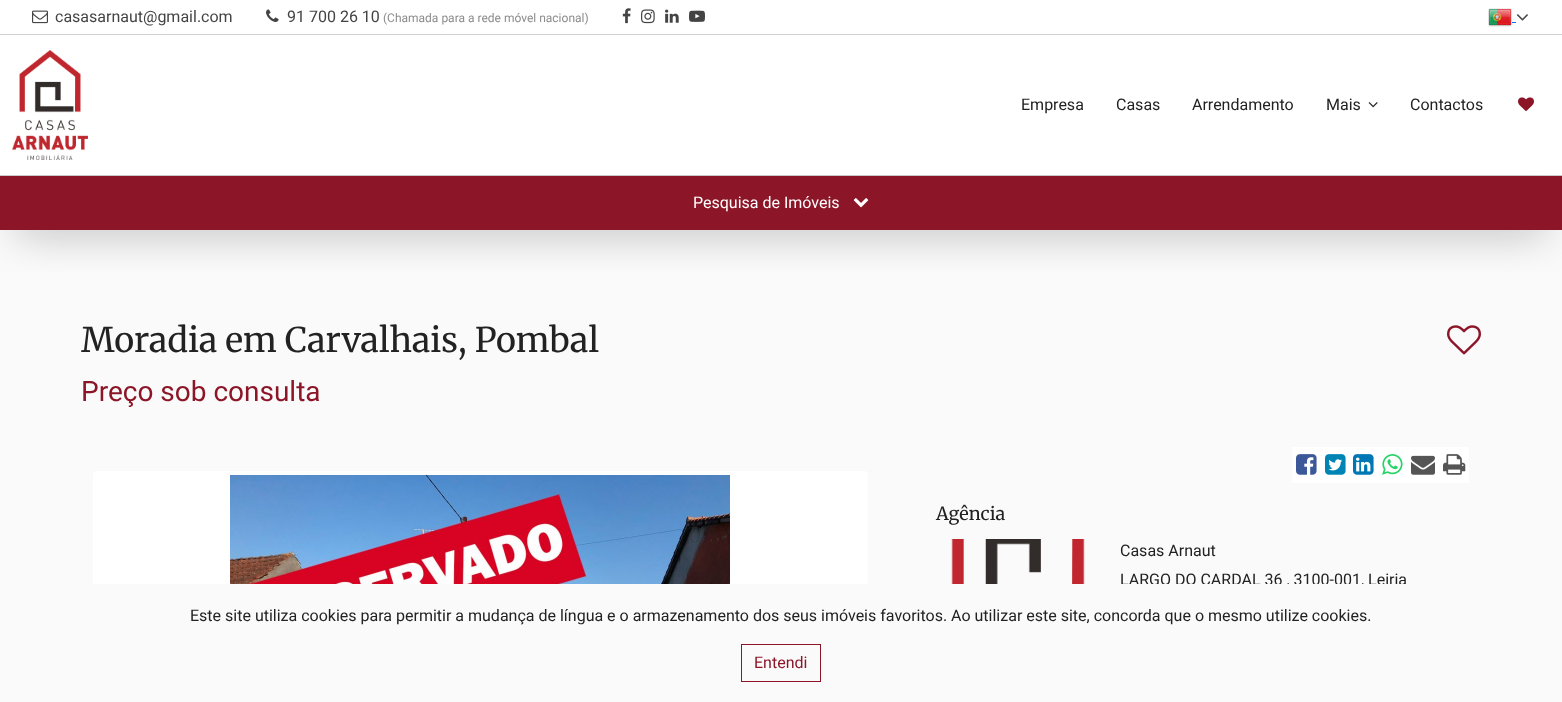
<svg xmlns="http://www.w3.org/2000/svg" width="1562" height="702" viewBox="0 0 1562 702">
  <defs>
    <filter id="blur1" x="-50%" y="-200%" width="200%" height="500%"><feGaussianBlur stdDeviation="22"/></filter>
  </defs>
  <rect width="100%" height="100%" fill="#fafafa"/>
  <rect x="0" y="175" width="1562" height="1" fill="#cdcdcd"/>
  <rect x="0" y="0" width="1562" height="34" fill="#ffffff"/>
  <rect x="0" y="34" width="1562" height="1" fill="#d0d0d0"/>
  <image x="32" y="10" width="16" height="14" href="img1.png"/>
  <text x="55" y="22" font-family="Roboto" font-size="16" fill="#444444">casasarnaut@gmail.com</text>
  <image x="266" y="9" width="13" height="13" href="img2.png"/>
  <text x="287" y="22" font-family="Roboto" font-size="16" fill="#444444">91 700 26 10</text>
  <text x="383" y="22" font-family="Roboto" font-size="12" fill="#8c8c8c">(Chamada para a rede móvel nacional)</text>
  <image x="622" y="8" width="9" height="16" href="img3.png"/>
  <image x="641" y="9" width="14" height="15" href="img4.png"/>
  <image x="665" y="9" width="14" height="14" href="img5.png"/>
  <image x="689" y="10" width="16" height="12" href="img6.png"/>
  <image x="1488" y="8" width="24" height="19" href="img7.png"/>
  <image x="1516" y="14" width="12" height="7" href="img8.png"/>
  <rect x="1512" y="22" width="4" height="1" fill="#0d6efd"/>
  <rect x="16" y="207" width="1530" height="22" fill="#000000" fill-opacity="0.37" filter="url(#blur1)"/>
  <rect x="0" y="35" width="1562" height="140" fill="#ffffff"/>
  <image x="12" y="50" width="76" height="110" href="img9.png"/>
  <text x="1021" y="110" font-family="Roboto" font-size="16" fill="#222222">Empresa</text>
  <text x="1116" y="110" font-family="Roboto" font-size="16" fill="#222222">Casas</text>
  <text x="1192" y="110" font-family="Roboto" font-size="16" fill="#222222">Arrendamento</text>
  <text x="1326" y="110" font-family="Roboto" font-size="16" fill="#222222">Mais</text>
  <image x="1368" y="102" width="10" height="6" href="img10.png"/>
  <text x="1410" y="110" font-family="Roboto" font-size="16" fill="#222222">Contactos</text>
  <image x="1518" y="97" width="16" height="15" href="img11.png"/>
  <rect x="0" y="176" width="1562" height="54" fill="#8c1628"/>
  <text x="693" y="208" font-family="Roboto" font-size="16" fill="#ffffff">Pesquisa de Imóveis</text>
  <image x="853" y="198" width="16" height="10" href="img12.png"/>
  <text x="81" y="352" font-family="Merriweather" font-size="34" fill="#222222">Moradia em Carvalhais, Pombal</text>
  <image x="1447" y="325" width="34" height="30" href="img13.png"/>
  <text x="81" y="401" font-family="Roboto" font-size="28" fill="#8c1628">Preço sob consulta</text>
  <rect x="93" y="471" width="775" height="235" rx="4" fill="#ffffff"/>
  <image x="230" y="475" width="500" height="109" href="img14.png"/>
  <rect x="1292" y="447" width="177" height="36" fill="#ffffff"/>
  <image x="1296" y="454" width="21" height="21" href="img15.png"/>
  <image x="1325" y="454" width="21" height="21" href="img16.png"/>
  <image x="1353" y="454" width="21" height="21" href="img17.png"/>
  <image x="1382" y="454" width="21" height="21" href="img18.png"/>
  <image x="1411" y="455" width="24" height="20" href="img19.png"/>
  <image x="1443" y="454" width="23" height="21" href="img20.png"/>
  <text x="936" y="520" font-family="Merriweather" font-size="18" fill="#222222">Agência</text>
  <image x="951" y="539" width="134" height="45" href="img21.png"/>
  <text x="1120" y="556" font-family="Roboto" font-size="16" fill="#222222">Casas Arnaut</text>
  <text x="1120" y="585" font-family="Roboto" font-size="16" fill="#222222">LARGO DO CARDAL 36 , 3100-001, Leiria</text>
  <rect x="93" y="584" width="1314" height="118" fill="#fafafa"/>
  <text x="190" y="621" font-family="Roboto" font-size="16" fill="#222222">Este site utiliza cookies para permitir a mudança de língua e o armazenamento dos seus imóveis favoritos. Ao utilizar este site, concorda que o mesmo utilize cookies.</text>
  <rect x="741.5" y="644.5" width="79" height="37" fill="none" stroke="#8c1628"/>
  <text x="754" y="668" font-family="Roboto" font-size="16" fill="#8c1628">Entendi</text>
</svg>
